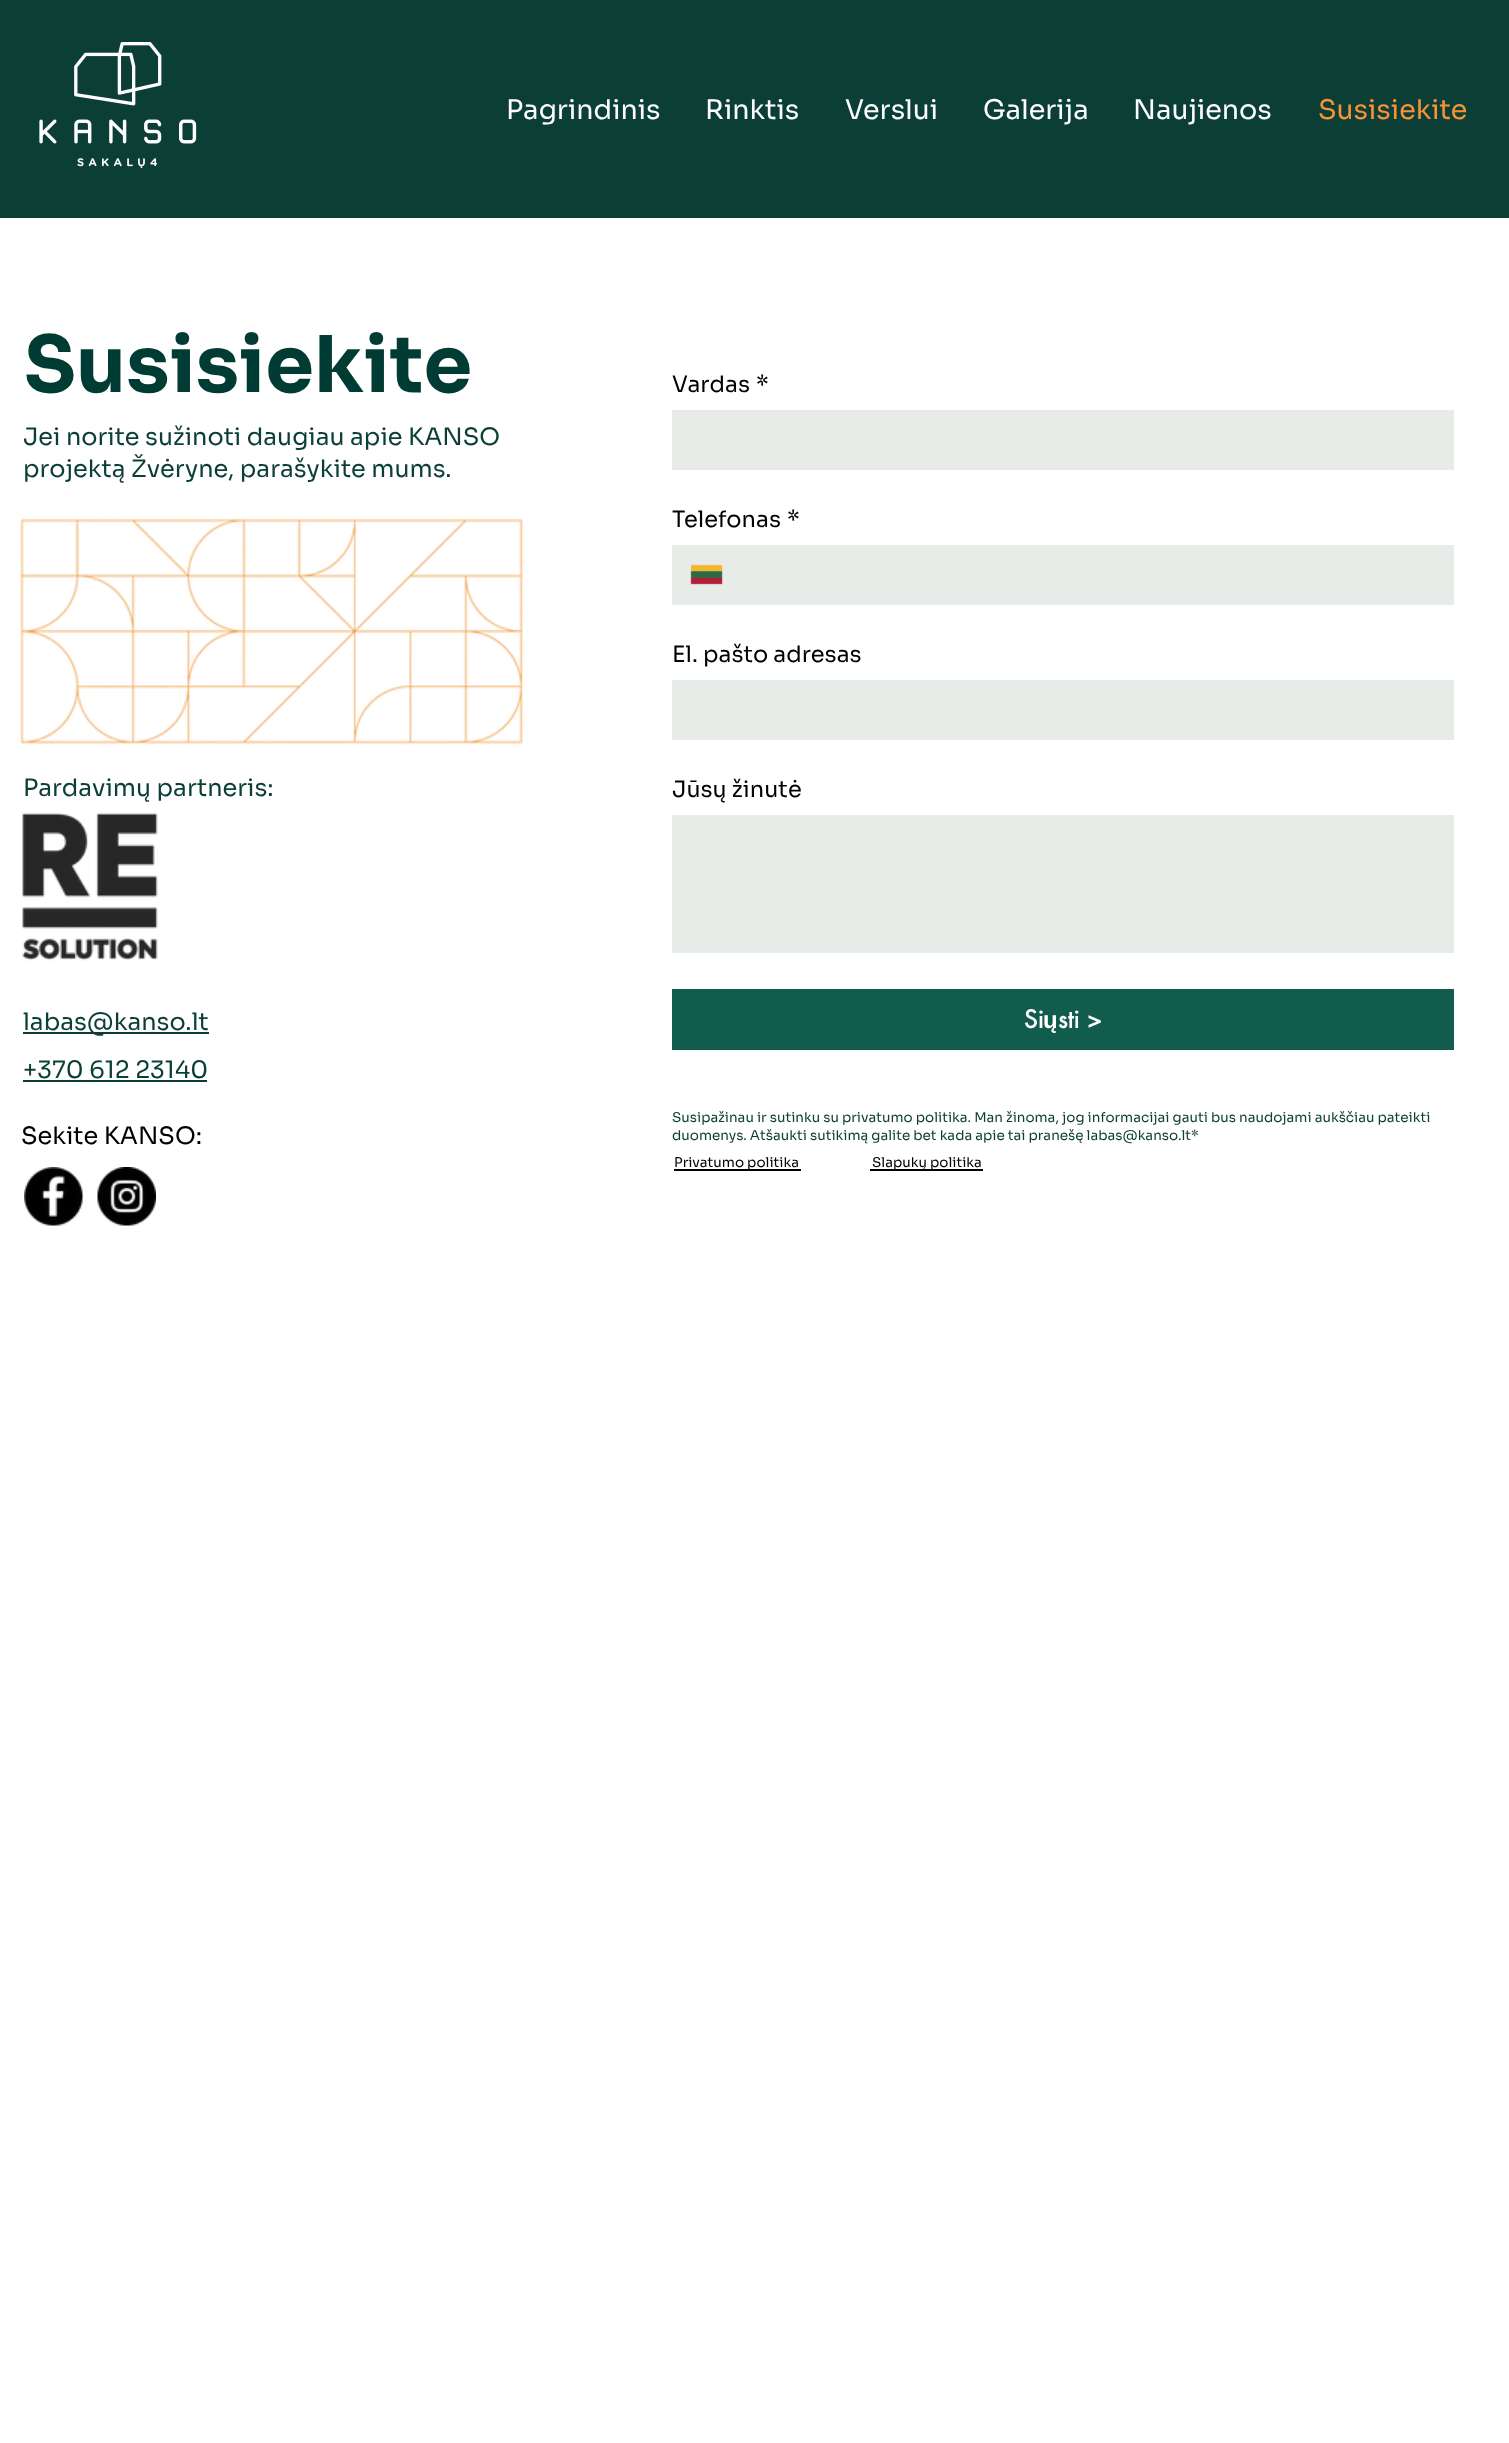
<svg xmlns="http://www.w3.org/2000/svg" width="1509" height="2443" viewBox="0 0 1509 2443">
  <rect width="100%" height="100%" fill="#ffffff"/>
  <rect x="0" y="0" width="1509" height="218" fill="#0b3f36"/>
  <image x="39" y="42" width="158" height="126" href="img1.png"/>
  <text x="506" y="119" font-family="Sora" font-size="27" fill="#ffffff">Pagrindinis</text>
  <text x="705" y="119" font-family="Sora" font-size="27" fill="#ffffff">Rinktis</text>
  <text x="845" y="119" font-family="Sora" font-size="27" fill="#ffffff">Verslui</text>
  <text x="983" y="119" font-family="Sora" font-size="27" fill="#ffffff">Galerija</text>
  <text x="1133" y="119" font-family="Sora" font-size="27" fill="#ffffff">Naujienos</text>
  <text x="1318" y="119" font-family="Sora" font-size="27" fill="#f79239">Susisiekite</text>
  <text x="24" y="392" font-family="Sora" font-size="78" font-weight="bold" fill="#003c33">Susisiekite</text>
  <text x="23" y="445" font-family="Sora" font-size="24" fill="#0b3f35">Jei norite sužinoti daugiau apie KANSO</text>
  <text x="23" y="477" font-family="Sora" font-size="24" fill="#0b3f35">projektą Žvėryne, parašykite mums.</text>
  <image x="20" y="518" width="504" height="227" href="img2.png"/>
  <text x="23" y="796" font-family="Sora" font-size="24" fill="#0b3f35">Pardavimų partneris:</text>
  <image x="22" y="812" width="136" height="149" href="img3.png"/>
  <rect x="23" y="1032" width="186" height="2" fill="#0b3f35"/>
  <text x="23" y="1030" font-family="Sora" font-size="24" fill="#0b3f35">labas@kanso.lt</text>
  <text x="23" y="1078" font-family="Sora" font-size="24" fill="#0b3f35">+370 612 23140</text>
  <rect x="23" y="1080" width="184" height="2" fill="#0b3f35"/>
  <text x="21" y="1144" font-family="Sora" font-size="24" fill="#000000">Sekite KANSO:</text>
  <image x="24" y="1167" width="59" height="59" href="img4.png"/>
  <image x="97" y="1167" width="59" height="59" href="img5.png"/>
  <text x="672" y="392" font-family="Sora" font-size="22.5" fill="#000000">Vardas</text>
  <text x="756" y="392" font-family="Sora" font-size="22.5" fill="#000000">*</text>
  <rect x="672" y="410" width="782" height="60" fill="#e7ece9"/>
  <text x="672" y="527" font-family="Sora" font-size="22.5" fill="#000000">Telefonas</text>
  <text x="787" y="527" font-family="Sora" font-size="22.5" fill="#000000">*</text>
  <rect x="672" y="545" width="782" height="60" fill="#e7ece9"/>
  <image x="690" y="564" width="33" height="21" href="img6.png"/>
  <text x="672" y="662" font-family="Sora" font-size="22.5" fill="#000000">El. pašto adresas</text>
  <rect x="672" y="680" width="782" height="60" fill="#e7ece9"/>
  <text x="672" y="797" font-family="Sora" font-size="22.5" fill="#000000">Jūsų žinutė</text>
  <rect x="672" y="815" width="782" height="138" fill="#e7ece9"/>
  <rect x="672" y="989" width="782" height="61" fill="#125c4d"/>
  <text x="1024" y="1028" font-family="futura" font-size="24" font-weight="bold" fill="#ffffff">Si</text>
  <text x="1043" y="1028" font-family="Liberation Sans" font-size="24" font-weight="bold" fill="#ffffff">ų</text>
  <text x="1058" y="1028" font-family="futura" font-size="24" font-weight="bold" fill="#ffffff">sti &gt;</text>
  <text x="672" y="1122" font-family="Sora" font-size="13.5" fill="#0b3f35">Susipažinau ir sutinku su privatumo politika. Man žinoma, jog informacijai gauti bus naudojami aukščiau pateikti</text>
  <text x="672" y="1140" font-family="Sora" font-size="13.5" fill="#0b3f35">duomenys. Atšaukti sutikimą galite bet kada apie tai pranešę labas@kanso.lt*</text>
  <rect x="674" y="1169" width="127" height="2" fill="#000000"/>
  <text x="674" y="1167" font-family="Sora" font-size="13.5" fill="#000000">Privatumo politika</text>
  <rect x="870" y="1169" width="113" height="2" fill="#000000"/>
  <text x="872" y="1167" font-family="Sora" font-size="13.5" fill="#000000">Slapukų politika</text>
</svg>
